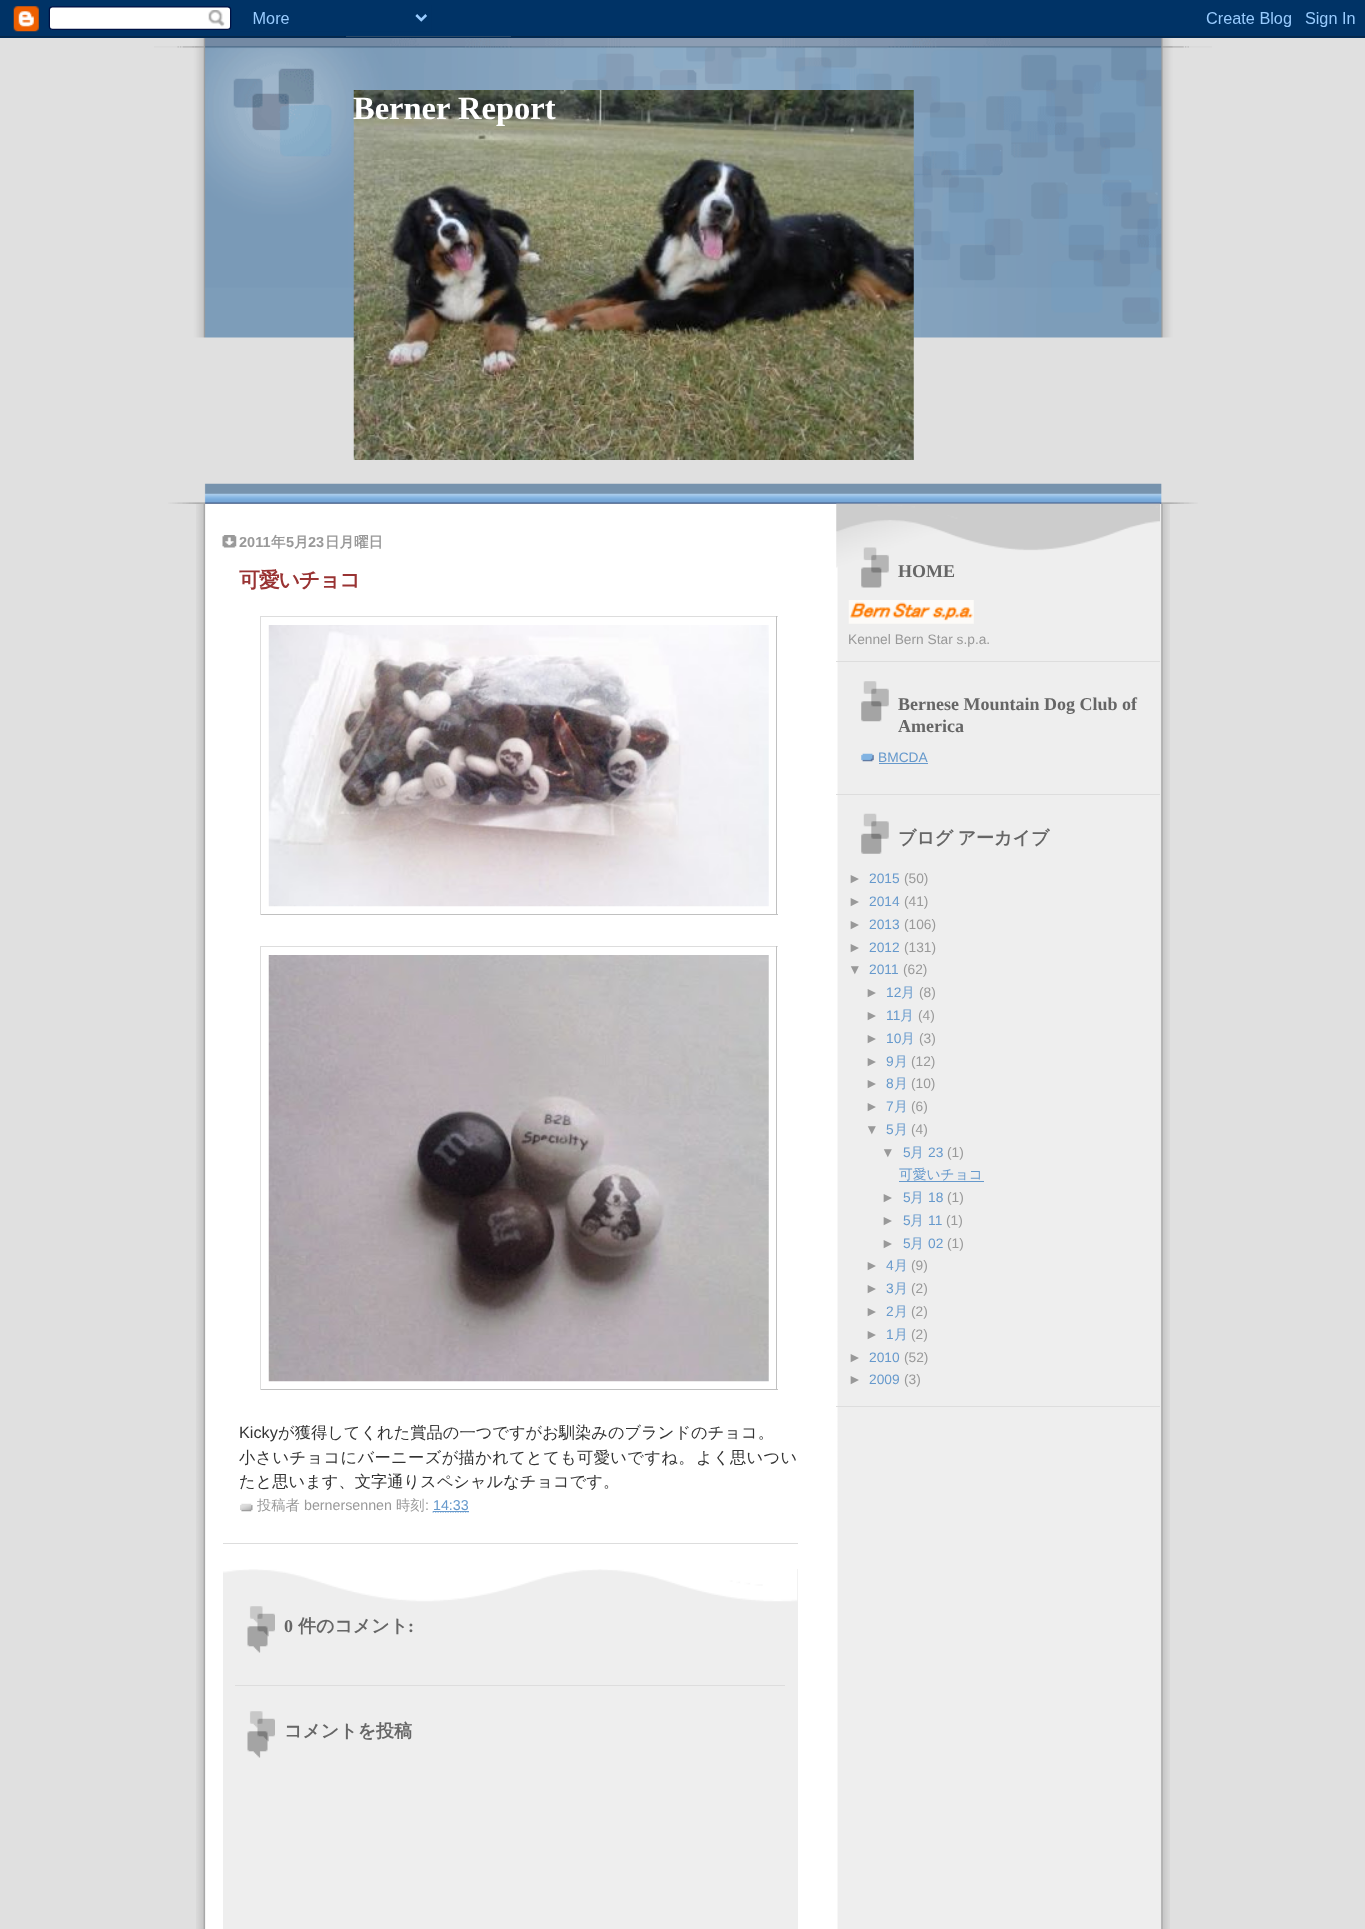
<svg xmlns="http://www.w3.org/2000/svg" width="1365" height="1929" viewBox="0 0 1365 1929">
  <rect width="100%" height="100%" fill="#e0e0e0"/>
  <image x="0" y="0" width="1365" height="38" href="img1.png"/>
  <image x="196" y="504" width="974" height="1425" href="img2.png"/>
  <image x="154" y="38" width="1058" height="300" href="img3.png"/>
  <image x="168" y="483" width="1030" height="21" href="img4.png"/>
  <image x="353" y="90" width="561" height="370" href="img5.png"/>
  <text x="353" y="119" font-family="Liberation Serif" font-size="32.5" font-weight="bold" fill="#ffffff">Berner Report</text>
  <image x="222" y="535" width="15" height="13" href="img6.png"/>
  <text x="239" y="547" font-family="Liberation Sans" font-size="14.5" font-weight="bold" fill="#999999">2011</text>
  <text x="271" y="547" font-family="WenQuanYi Zen Hei" font-size="14.5" font-weight="bold" fill="#999999">年</text>
  <text x="286" y="547" font-family="Liberation Sans" font-size="14.5" font-weight="bold" fill="#999999">5</text>
  <text x="294" y="547" font-family="WenQuanYi Zen Hei" font-size="14.5" font-weight="bold" fill="#999999">月</text>
  <text x="308" y="547" font-family="Liberation Sans" font-size="14.5" font-weight="bold" fill="#999999">23</text>
  <text x="325" y="547" font-family="WenQuanYi Zen Hei" font-size="14.5" font-weight="bold" fill="#999999">日月曜日</text>
  <rect x="223" y="1543" width="575" height="1" fill="#dddddd"/>
  <text x="239" y="587" font-family="WenQuanYi Zen Hei" font-size="21" font-weight="bold" letter-spacing="-1.25" fill="#993333">可愛いチョコ</text>
  <rect x="260" y="616" width="518" height="1" fill="#dddddd"/>
  <rect x="776" y="616" width="1" height="299" fill="#c0c0c0"/>
  <rect x="260" y="914" width="518" height="1" fill="#c0c0c0"/>
  <rect x="260" y="616" width="1" height="299" fill="#dddddd"/>
  <image x="268" y="625" width="501" height="282" href="img7.png"/>
  <rect x="260" y="946" width="518" height="1" fill="#dddddd"/>
  <rect x="776" y="946" width="1" height="444" fill="#c0c0c0"/>
  <rect x="260" y="1389" width="518" height="1" fill="#c0c0c0"/>
  <rect x="260" y="946" width="1" height="444" fill="#dddddd"/>
  <image x="268" y="955" width="501" height="427" href="img8.png"/>
  <text x="239" y="1438" font-family="Liberation Sans" font-size="16.25" fill="#333333">Kicky</text>
  <text x="278" y="1438" font-family="WenQuanYi Zen Hei" font-size="16.25" font-weight="500" fill="#333333">が獲得してくれた賞品の一つですがお馴染みのブランドのチョコ。</text>
  <text x="239" y="1463" font-family="WenQuanYi Zen Hei" font-size="16.25" font-weight="500" letter-spacing="0.35" fill="#333333">小さいチョコにバーニーズが描かれてとても可愛いですね。</text>
  <text x="696" y="1463" font-family="WenQuanYi Zen Hei" font-size="16.25" font-weight="500" letter-spacing="0.35" fill="#333333">よく思いつい</text>
  <text x="239" y="1487" font-family="WenQuanYi Zen Hei" font-size="16.25" font-weight="500" fill="#333333">たと思います、文字通りスペシャルなチョコです。</text>
  <image x="240" y="1503" width="13" height="9" href="img9.png"/>
  <text x="257" y="1510" font-family="WenQuanYi Zen Hei" font-size="14.25" font-weight="500" fill="#999999">投稿者</text>
  <text x="304" y="1510" font-family="Liberation Sans" font-size="14.25" fill="#999999">bernersennen</text>
  <text x="396" y="1510" font-family="WenQuanYi Zen Hei" font-size="14.25" font-weight="500" fill="#999999">時刻</text>
  <text x="425" y="1510" font-family="Liberation Sans" font-size="14.25" fill="#999999">:</text>
  <text x="433" y="1510" font-family="Liberation Sans" font-size="14.25" fill="#6699cc">14:33</text>
  <path d="M432.5 1512H468.5" fill="none" stroke="#6699cc" stroke-width="1.2" stroke-dasharray="1.25 1.25"/>
  <rect x="433" y="1511" width="36" height="1" fill="#6699cc"/>
  <rect x="223" y="1569" width="575" height="360" fill="#eeeeee"/>
  <image x="223" y="1569" width="575" height="33" href="img10.png"/>
  <image x="247" y="1606" width="28" height="47" href="img11.png"/>
  <text x="284" y="1632" font-family="Liberation Serif" font-size="18" font-weight="bold" fill="#666666">0</text>
  <text x="298" y="1632" font-family="WenQuanYi Zen Hei" font-size="18" font-weight="bold" fill="#666666">件のコメント</text>
  <text x="408" y="1632" font-family="Liberation Serif" font-size="18" font-weight="bold" fill="#666666">:</text>
  <rect x="235" y="1685" width="550" height="1" fill="#dddddd"/>
  <image x="247" y="1711" width="28" height="47" href="img11.png"/>
  <text x="284" y="1737" font-family="WenQuanYi Zen Hei" font-size="18" font-weight="bold" fill="#666666">コメントを投稿</text>
  <image x="836" y="503" width="324" height="65" href="img12.png"/>
  <rect x="836" y="661" width="324" height="1" fill="#dddddd"/>
  <image x="861" y="547" width="28" height="41" href="img13.png"/>
  <text x="898" y="577" font-family="Liberation Serif" font-size="18" font-weight="bold" fill="#666666">HOME</text>
  <image x="848" y="600" width="126" height="24" href="img14.png"/>
  <text x="848" y="644" font-family="Liberation Sans" font-size="13.75" fill="#999999">Kennel Bern Star s.p.a.</text>
  <rect x="836" y="794" width="324" height="1" fill="#dddddd"/>
  <image x="861" y="681" width="28" height="41" href="img15.png"/>
  <text x="898" y="710" font-family="Liberation Serif" font-size="18" font-weight="bold" fill="#666666">Bernese Mountain Dog Club of</text>
  <text x="898" y="732" font-family="Liberation Serif" font-size="18" font-weight="bold" fill="#666666">America</text>
  <image x="861" y="753" width="13" height="9" href="img16.png"/>
  <text x="878" y="762" font-family="Liberation Sans" font-size="13.75" fill="#6699cc">BMCDA</text>
  <rect x="879" y="763" width="49" height="1" fill="#6699cc"/>
  <rect x="836" y="1406" width="324" height="1" fill="#dddddd"/>
  <image x="861" y="813" width="28" height="41" href="img17.png"/>
  <text x="898" y="844" word-spacing="-1" font-family="WenQuanYi Zen Hei" font-size="18" font-weight="bold" fill="#666666">ブログ アーカイブ</text>
  <text x="848" y="883" font-family="Liberation Sans" font-size="13.75" fill="#999999">►</text>
  <text x="869" y="883" font-family="Liberation Sans" font-size="13.75" fill="#6699cc">2015</text>
  <text x="904" y="883" font-family="Liberation Sans" font-size="13.75" fill="#999999">(50)</text>
  <text x="848" y="906" font-family="Liberation Sans" font-size="13.75" fill="#999999">►</text>
  <text x="869" y="906" font-family="Liberation Sans" font-size="13.75" fill="#6699cc">2014</text>
  <text x="904" y="906" font-family="Liberation Sans" font-size="13.75" fill="#999999">(41)</text>
  <text x="848" y="929" font-family="Liberation Sans" font-size="13.75" fill="#999999">►</text>
  <text x="869" y="929" font-family="Liberation Sans" font-size="13.75" fill="#6699cc">2013</text>
  <text x="904" y="929" font-family="Liberation Sans" font-size="13.75" fill="#999999">(106)</text>
  <text x="848" y="952" font-family="Liberation Sans" font-size="13.75" fill="#999999">►</text>
  <text x="869" y="952" font-family="Liberation Sans" font-size="13.75" fill="#6699cc">2012</text>
  <text x="904" y="952" font-family="Liberation Sans" font-size="13.75" fill="#999999">(131)</text>
  <text x="848" y="974" font-family="Liberation Sans" font-size="13.75" fill="#999999">▼</text>
  <text x="869" y="974" font-family="Liberation Sans" font-size="13.75" fill="#6699cc">2011</text>
  <text x="903" y="974" font-family="Liberation Sans" font-size="13.75" fill="#999999">(62)</text>
  <text x="865" y="997" font-family="Liberation Sans" font-size="13.75" fill="#999999">►</text>
  <text x="886" y="997" font-family="Liberation Sans" font-size="13.75" fill="#6699cc">12</text>
  <text x="901" y="997" font-family="WenQuanYi Zen Hei" font-size="13.75" font-weight="500" fill="#6699cc">月</text>
  <text x="919" y="997" font-family="Liberation Sans" font-size="13.75" fill="#999999">(8)</text>
  <text x="865" y="1020" font-family="Liberation Sans" font-size="13.75" fill="#999999">►</text>
  <text x="886" y="1020" font-family="Liberation Sans" font-size="13.75" fill="#6699cc">11</text>
  <text x="900" y="1020" font-family="WenQuanYi Zen Hei" font-size="13.75" font-weight="500" fill="#6699cc">月</text>
  <text x="918" y="1020" font-family="Liberation Sans" font-size="13.75" fill="#999999">(4)</text>
  <text x="865" y="1043" font-family="Liberation Sans" font-size="13.75" fill="#999999">►</text>
  <text x="886" y="1043" font-family="Liberation Sans" font-size="13.75" fill="#6699cc">10</text>
  <text x="901" y="1043" font-family="WenQuanYi Zen Hei" font-size="13.75" font-weight="500" fill="#6699cc">月</text>
  <text x="919" y="1043" font-family="Liberation Sans" font-size="13.75" fill="#999999">(3)</text>
  <text x="865" y="1066" font-family="Liberation Sans" font-size="13.75" fill="#999999">►</text>
  <text x="886" y="1066" font-family="Liberation Sans" font-size="13.75" fill="#6699cc">9</text>
  <text x="894" y="1066" font-family="WenQuanYi Zen Hei" font-size="13.75" font-weight="500" fill="#6699cc">月</text>
  <text x="911" y="1066" font-family="Liberation Sans" font-size="13.75" fill="#999999">(12)</text>
  <text x="865" y="1088" font-family="Liberation Sans" font-size="13.75" fill="#999999">►</text>
  <text x="886" y="1088" font-family="Liberation Sans" font-size="13.75" fill="#6699cc">8</text>
  <text x="894" y="1088" font-family="WenQuanYi Zen Hei" font-size="13.75" font-weight="500" fill="#6699cc">月</text>
  <text x="911" y="1088" font-family="Liberation Sans" font-size="13.75" fill="#999999">(10)</text>
  <text x="865" y="1111" font-family="Liberation Sans" font-size="13.75" fill="#999999">►</text>
  <text x="886" y="1111" font-family="Liberation Sans" font-size="13.75" fill="#6699cc">7</text>
  <text x="894" y="1111" font-family="WenQuanYi Zen Hei" font-size="13.75" font-weight="500" fill="#6699cc">月</text>
  <text x="911" y="1111" font-family="Liberation Sans" font-size="13.75" fill="#999999">(6)</text>
  <text x="865" y="1134" font-family="Liberation Sans" font-size="13.75" fill="#999999">▼</text>
  <text x="886" y="1134" font-family="Liberation Sans" font-size="13.75" fill="#6699cc">5</text>
  <text x="894" y="1134" font-family="WenQuanYi Zen Hei" font-size="13.75" font-weight="500" fill="#6699cc">月</text>
  <text x="911" y="1134" font-family="Liberation Sans" font-size="13.75" fill="#999999">(4)</text>
  <text x="881" y="1157" font-family="Liberation Sans" font-size="13.75" fill="#999999">▼</text>
  <text x="903" y="1157" font-family="Liberation Sans" font-size="13.75" fill="#6699cc">5</text>
  <text x="910" y="1157" font-family="WenQuanYi Zen Hei" font-size="13.75" font-weight="500" fill="#6699cc">月</text>
  <text x="928" y="1157" font-family="Liberation Sans" font-size="13.75" fill="#6699cc">23</text>
  <text x="947" y="1157" font-family="Liberation Sans" font-size="13.75" fill="#999999">(1)</text>
  <text x="899" y="1179" font-family="WenQuanYi Zen Hei" font-size="13.75" font-weight="500" fill="#6699cc">可愛いチョコ</text>
  <rect x="899" y="1181" width="85" height="1" fill="#6699cc"/>
  <text x="881" y="1202" font-family="Liberation Sans" font-size="13.75" fill="#999999">►</text>
  <text x="903" y="1202" font-family="Liberation Sans" font-size="13.75" fill="#6699cc">5</text>
  <text x="910" y="1202" font-family="WenQuanYi Zen Hei" font-size="13.75" font-weight="500" fill="#6699cc">月</text>
  <text x="928" y="1202" font-family="Liberation Sans" font-size="13.75" fill="#6699cc">18</text>
  <text x="947" y="1202" font-family="Liberation Sans" font-size="13.75" fill="#999999">(1)</text>
  <text x="881" y="1225" font-family="Liberation Sans" font-size="13.75" fill="#999999">►</text>
  <text x="903" y="1225" font-family="Liberation Sans" font-size="13.75" fill="#6699cc">5</text>
  <text x="910" y="1225" font-family="WenQuanYi Zen Hei" font-size="13.75" font-weight="500" fill="#6699cc">月</text>
  <text x="928" y="1225" font-family="Liberation Sans" font-size="13.75" fill="#6699cc">11</text>
  <text x="946" y="1225" font-family="Liberation Sans" font-size="13.75" fill="#999999">(1)</text>
  <text x="881" y="1248" font-family="Liberation Sans" font-size="13.75" fill="#999999">►</text>
  <text x="903" y="1248" font-family="Liberation Sans" font-size="13.75" fill="#6699cc">5</text>
  <text x="910" y="1248" font-family="WenQuanYi Zen Hei" font-size="13.75" font-weight="500" fill="#6699cc">月</text>
  <text x="928" y="1248" font-family="Liberation Sans" font-size="13.75" fill="#6699cc">02</text>
  <text x="947" y="1248" font-family="Liberation Sans" font-size="13.75" fill="#999999">(1)</text>
  <text x="865" y="1270" font-family="Liberation Sans" font-size="13.75" fill="#999999">►</text>
  <text x="886" y="1270" font-family="Liberation Sans" font-size="13.75" fill="#6699cc">4</text>
  <text x="894" y="1270" font-family="WenQuanYi Zen Hei" font-size="13.75" font-weight="500" fill="#6699cc">月</text>
  <text x="911" y="1270" font-family="Liberation Sans" font-size="13.75" fill="#999999">(9)</text>
  <text x="865" y="1293" font-family="Liberation Sans" font-size="13.75" fill="#999999">►</text>
  <text x="886" y="1293" font-family="Liberation Sans" font-size="13.75" fill="#6699cc">3</text>
  <text x="894" y="1293" font-family="WenQuanYi Zen Hei" font-size="13.75" font-weight="500" fill="#6699cc">月</text>
  <text x="911" y="1293" font-family="Liberation Sans" font-size="13.75" fill="#999999">(2)</text>
  <text x="865" y="1316" font-family="Liberation Sans" font-size="13.75" fill="#999999">►</text>
  <text x="886" y="1316" font-family="Liberation Sans" font-size="13.75" fill="#6699cc">2</text>
  <text x="894" y="1316" font-family="WenQuanYi Zen Hei" font-size="13.75" font-weight="500" fill="#6699cc">月</text>
  <text x="911" y="1316" font-family="Liberation Sans" font-size="13.75" fill="#999999">(2)</text>
  <text x="865" y="1339" font-family="Liberation Sans" font-size="13.75" fill="#999999">►</text>
  <text x="886" y="1339" font-family="Liberation Sans" font-size="13.75" fill="#6699cc">1</text>
  <text x="894" y="1339" font-family="WenQuanYi Zen Hei" font-size="13.75" font-weight="500" fill="#6699cc">月</text>
  <text x="911" y="1339" font-family="Liberation Sans" font-size="13.75" fill="#999999">(2)</text>
  <text x="848" y="1362" font-family="Liberation Sans" font-size="13.75" fill="#999999">►</text>
  <text x="869" y="1362" font-family="Liberation Sans" font-size="13.75" fill="#6699cc">2010</text>
  <text x="904" y="1362" font-family="Liberation Sans" font-size="13.75" fill="#999999">(52)</text>
  <text x="848" y="1384" font-family="Liberation Sans" font-size="13.75" fill="#999999">►</text>
  <text x="869" y="1384" font-family="Liberation Sans" font-size="13.75" fill="#6699cc">2009</text>
  <text x="904" y="1384" font-family="Liberation Sans" font-size="13.75" fill="#999999">(3)</text>
</svg>
